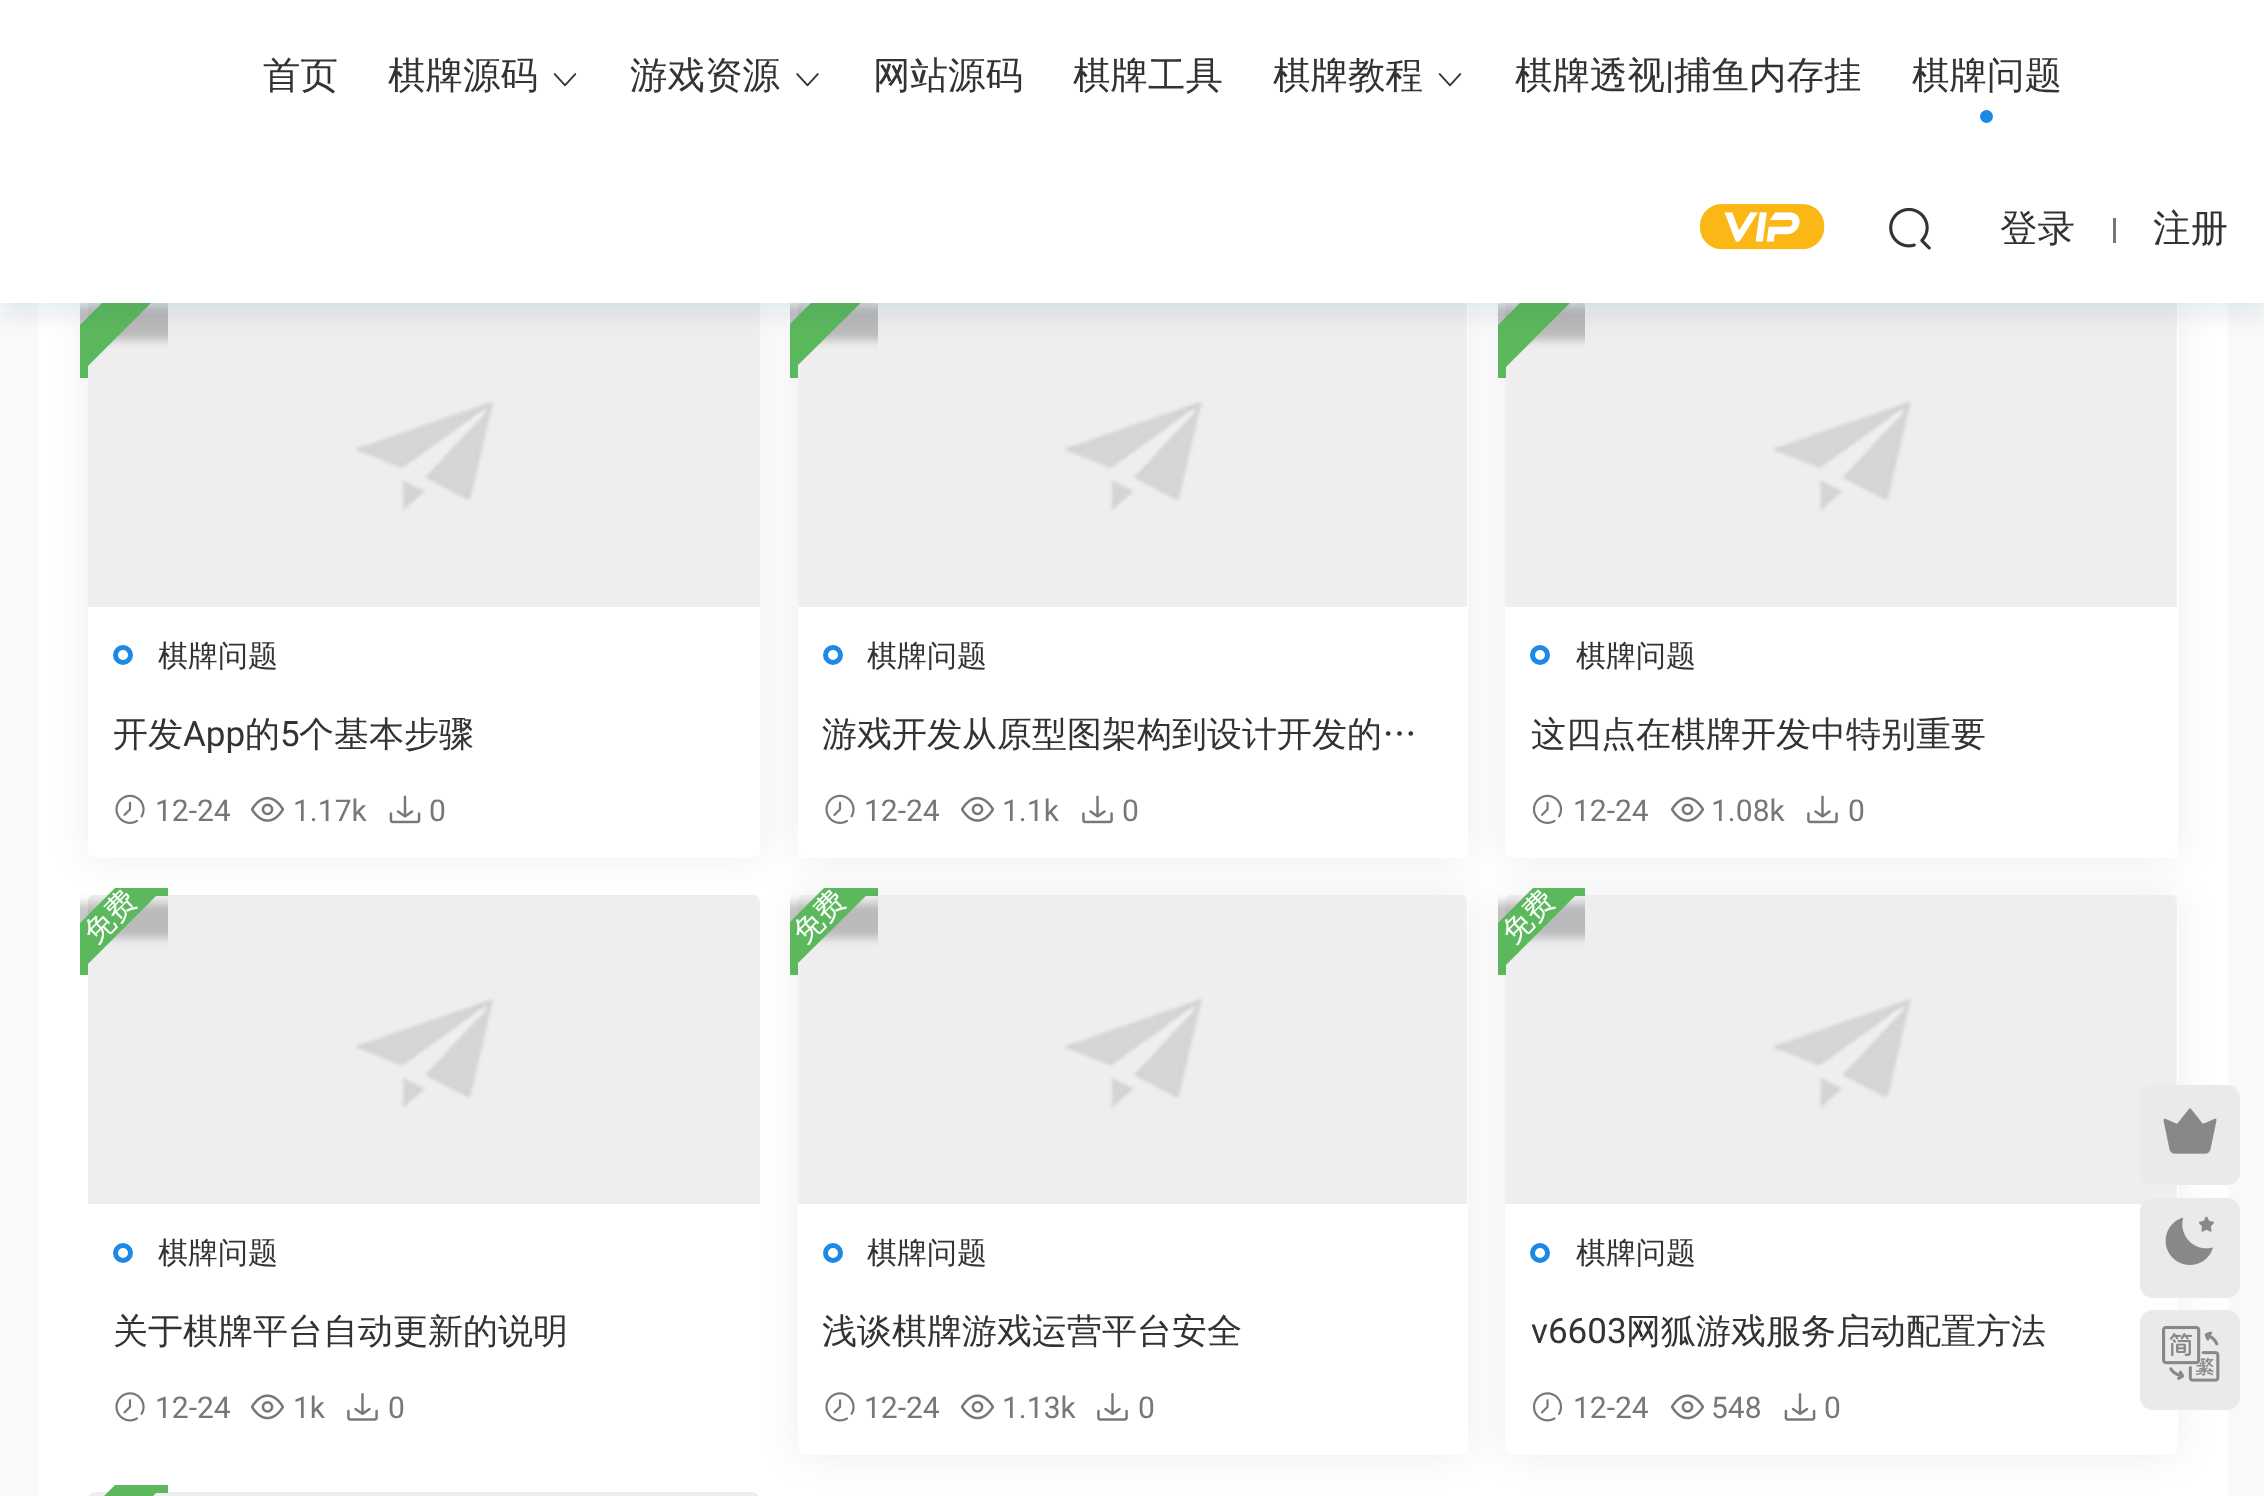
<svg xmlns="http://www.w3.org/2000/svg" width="2264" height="1496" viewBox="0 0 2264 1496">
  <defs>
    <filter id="blur1" x="-50%" y="-200%" width="200%" height="500%"><feGaussianBlur stdDeviation="19"/></filter>
    <clipPath id="clip1"><rect x="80" y="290" width="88" height="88"/></clipPath>
    <filter id="blur2" x="-50%" y="-200%" width="200%" height="500%"><feGaussianBlur stdDeviation="5"/></filter>
    <clipPath id="clip2"><rect x="80" y="290" width="88" height="88"/></clipPath>
    <clipPath id="clip3"><rect x="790" y="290" width="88" height="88"/></clipPath>
    <clipPath id="clip4"><rect x="790" y="290" width="88" height="88"/></clipPath>
    <clipPath id="clip5"><rect x="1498" y="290" width="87" height="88"/></clipPath>
    <clipPath id="clip6"><rect x="1498" y="290" width="87" height="88"/></clipPath>
    <filter id="blur3" x="-50%" y="-200%" width="200%" height="500%"><feGaussianBlur stdDeviation="12.5"/></filter>
    <clipPath id="clip7"><rect x="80" y="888" width="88" height="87"/></clipPath>
    <clipPath id="clip8"><rect x="80" y="888" width="88" height="87"/></clipPath>
    <clipPath id="clip9"><rect x="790" y="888" width="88" height="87"/></clipPath>
    <clipPath id="clip10"><rect x="790" y="888" width="88" height="87"/></clipPath>
    <clipPath id="clip11"><rect x="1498" y="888" width="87" height="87"/></clipPath>
    <clipPath id="clip12"><rect x="1498" y="888" width="87" height="87"/></clipPath>
    <clipPath id="clip13"><rect x="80" y="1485" width="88" height="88"/></clipPath>
    <clipPath id="clip14"><rect x="80" y="1485" width="88" height="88"/></clipPath>
  </defs>
  <rect width="100%" height="100%" fill="#f9f9f9"/>
  <rect x="38" y="303" width="2190" height="1193" fill="#ffffff"/>
  <rect x="88" y="298" width="672" height="560" rx="8" fill="#000000" fill-opacity="0.07" filter="url(#blur1)"/>
  <rect x="88" y="298" width="672" height="560" rx="8" fill="#ffffff"/>
  <image x="88" y="303" width="672" height="304" href="img5.png"/>
  <g clip-path="url(#clip1)">
    <rect x="33" y="305" width="150" height="35" fill="#000000" fill-opacity="0.22" filter="url(#blur2)"/>
  </g>
  <rect x="80" y="366" width="8" height="12" fill="#5cb85c"/>
  <g clip-path="url(#clip2)">
    <path d="M45 360L151 254L175 279L69 385Z" fill="#5cb85c"/>
  </g>
  <rect x="798" y="298" width="670" height="560" rx="8" fill="#000000" fill-opacity="0.07" filter="url(#blur1)"/>
  <rect x="798" y="298" width="670" height="560" rx="8" fill="#ffffff"/>
  <image x="798" y="303" width="669" height="304" href="img9.png"/>
  <g clip-path="url(#clip3)">
    <rect x="740" y="305" width="150" height="35" fill="#000000" fill-opacity="0.22" filter="url(#blur2)"/>
  </g>
  <rect x="790" y="365" width="8" height="13" fill="#5cb85c"/>
  <g clip-path="url(#clip4)">
    <path d="M754 360L860 254L885 279L778 385Z" fill="#5cb85c"/>
  </g>
  <rect x="1505" y="298" width="673" height="560" rx="8" fill="#000000" fill-opacity="0.07" filter="url(#blur1)"/>
  <rect x="1505" y="298" width="673" height="560" rx="8" fill="#ffffff"/>
  <image x="1505" y="303" width="672" height="304" href="img11.png"/>
  <g clip-path="url(#clip5)">
    <rect x="1450" y="305" width="150" height="35" fill="#000000" fill-opacity="0.22" filter="url(#blur2)"/>
  </g>
  <rect x="1498" y="367" width="8" height="11" fill="#5cb85c"/>
  <g clip-path="url(#clip6)">
    <path d="M1463 360L1569 254L1594 279L1488 385Z" fill="#5cb85c"/>
  </g>
  <rect x="0" y="10" width="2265" height="303" fill="#113a5d" fill-opacity="0.1" filter="url(#blur3)"/>
  <rect x="0" y="0" width="2264" height="303" fill="#ffffff"/>
  <text x="263" y="88" font-family="WenQuanYi Zen Hei" font-size="37.5" font-weight="500" fill="#333333">首页</text>
  <text x="388" y="88" font-family="WenQuanYi Zen Hei" font-size="37.5" font-weight="500" fill="#333333">棋牌源码</text>
  <image x="553" y="73" width="24" height="14" href="img1.png"/>
  <text x="630" y="88" font-family="WenQuanYi Zen Hei" font-size="37.5" font-weight="500" fill="#333333">游戏资源</text>
  <image x="796" y="73" width="23" height="14" href="img2.png"/>
  <text x="873" y="88" font-family="WenQuanYi Zen Hei" font-size="37.5" font-weight="500" fill="#333333">网站源码</text>
  <text x="1073" y="88" font-family="WenQuanYi Zen Hei" font-size="37.5" font-weight="500" fill="#333333">棋牌工具</text>
  <text x="1273" y="88" font-family="WenQuanYi Zen Hei" font-size="37.5" font-weight="500" fill="#333333">棋牌教程</text>
  <image x="1438" y="73" width="24" height="14" href="img1.png"/>
  <text x="1515" y="88" font-family="WenQuanYi Zen Hei" font-size="37.5" font-weight="500" fill="#333333">棋牌透视</text>
  <text x="1665" y="88" font-family="Roboto" font-size="37.5" fill="#333333">|</text>
  <text x="1674" y="88" font-family="WenQuanYi Zen Hei" font-size="37.5" font-weight="500" fill="#333333">捕鱼内存挂</text>
  <text x="1912" y="88" font-family="WenQuanYi Zen Hei" font-size="37.5" font-weight="500" fill="#333333">棋牌问题</text>
  <circle cx="1986.5" cy="116.5" r="6.5" fill="#1e88e5"/>
  <image x="1700" y="204" width="125" height="46" href="img3.png"/>
  <image x="1889" y="207" width="42" height="43" href="img4.png"/>
  <text x="2000" y="241" font-family="WenQuanYi Zen Hei" font-size="37.5" font-weight="500" fill="#333333">登录</text>
  <rect x="2113" y="218" width="3" height="25" fill="#777777"/>
  <text x="2153" y="241" font-family="WenQuanYi Zen Hei" font-size="37.5" font-weight="500" fill="#333333">注册</text>
  <circle cx="123" cy="655" r="7.5" fill="none" stroke="#1e88e5" stroke-width="5"/>
  <text x="158" y="666" font-family="WenQuanYi Zen Hei" font-size="30" font-weight="500" fill="#333333">棋牌问题</text>
  <text x="113" y="746" font-family="WenQuanYi Zen Hei" font-size="35" font-weight="500" fill="#333333">开发</text>
  <text x="183" y="746" font-family="Roboto" font-size="35" fill="#333333">App</text>
  <text x="245" y="746" font-family="WenQuanYi Zen Hei" font-size="35" font-weight="500" fill="#333333">的</text>
  <text x="280" y="746" font-family="Roboto" font-size="35" fill="#333333">5</text>
  <text x="299" y="746" font-family="WenQuanYi Zen Hei" font-size="35" font-weight="500" fill="#333333">个基本步骤</text>
  <image x="115" y="794" width="30" height="30" href="img6.png"/>
  <text x="155" y="821" font-family="Roboto" font-size="30" fill="#777777">12-24</text>
  <image x="250" y="796" width="35" height="26" href="img7.png"/>
  <text x="293" y="821" font-family="Roboto" font-size="30" fill="#777777">1.17k</text>
  <image x="389" y="795" width="32" height="29" href="img8.png"/>
  <text x="429" y="821" font-family="Roboto" font-size="30" fill="#777777">0</text>
  <circle cx="833" cy="655" r="7.5" fill="none" stroke="#1e88e5" stroke-width="5"/>
  <text x="867" y="666" font-family="WenQuanYi Zen Hei" font-size="30" font-weight="500" fill="#333333">棋牌问题</text>
  <text x="822" y="746" font-family="WenQuanYi Zen Hei" font-size="35" font-weight="500" fill="#333333">游戏开发从原型图架构到设计开发的…</text>
  <image x="825" y="794" width="30" height="30" href="img6.png"/>
  <text x="864" y="821" font-family="Roboto" font-size="30" fill="#777777">12-24</text>
  <image x="960" y="796" width="35" height="26" href="img7.png"/>
  <text x="1002" y="821" font-family="Roboto" font-size="30" fill="#777777">1.1k</text>
  <image x="1082" y="795" width="31" height="29" href="img10.png"/>
  <text x="1122" y="821" font-family="Roboto" font-size="30" fill="#777777">0</text>
  <circle cx="1540" cy="655" r="7.5" fill="none" stroke="#1e88e5" stroke-width="5"/>
  <text x="1576" y="666" font-family="WenQuanYi Zen Hei" font-size="30" font-weight="500" fill="#333333">棋牌问题</text>
  <text x="1531" y="746" font-family="WenQuanYi Zen Hei" font-size="35" font-weight="500" fill="#333333">这四点在棋牌开发中特别重要</text>
  <image x="1532" y="794" width="31" height="30" href="img12.png"/>
  <text x="1573" y="821" font-family="Roboto" font-size="30" fill="#777777">12-24</text>
  <image x="1670" y="796" width="35" height="26" href="img7.png"/>
  <text x="1711" y="821" font-family="Roboto" font-size="30" fill="#777777">1.08k</text>
  <image x="1807" y="795" width="31" height="29" href="img10.png"/>
  <text x="1848" y="821" font-family="Roboto" font-size="30" fill="#777777">0</text>
  <image x="88" y="895" width="672" height="309" href="img16.png"/>
  <rect x="156" y="888" width="12" height="8" fill="#5cb85c"/>
  <g clip-path="url(#clip7)">
    <rect x="33" y="903" width="150" height="35" fill="#000000" fill-opacity="0.22" filter="url(#blur2)"/>
  </g>
  <rect x="80" y="964" width="8" height="11" fill="#5cb85c"/>
  <g clip-path="url(#clip8)">
    <path d="M45 958L151 852L175 877L69 983Z" fill="#5cb85c"/>
  </g>
  <text x="96" y="945" transform="rotate(-45 96 945)" font-family="WenQuanYi Zen Hei" font-size="30" font-weight="500" fill="#ffffff">免费</text>
  <image x="115" y="1392" width="30" height="30" href="img13.png"/>
  <text x="155" y="1418" font-family="Roboto" font-size="30" fill="#777777">12-24</text>
  <image x="250" y="1394" width="35" height="26" href="img14.png"/>
  <text x="293" y="1418" font-family="Roboto" font-size="30" fill="#777777">1k</text>
  <image x="347" y="1393" width="31" height="28" href="img15.png"/>
  <text x="388" y="1418" font-family="Roboto" font-size="30" fill="#777777">0</text>
  <circle cx="123" cy="1253" r="7.5" fill="none" stroke="#1e88e5" stroke-width="5"/>
  <text x="158" y="1263" font-family="WenQuanYi Zen Hei" font-size="30" font-weight="500" fill="#333333">棋牌问题</text>
  <text x="113" y="1343" font-family="WenQuanYi Zen Hei" font-size="35" font-weight="500" fill="#333333">关于棋牌平台自动更新的说明</text>
  <rect x="798" y="895" width="670" height="560" rx="8" fill="#000000" fill-opacity="0.07" filter="url(#blur1)"/>
  <rect x="798" y="895" width="670" height="560" rx="8" fill="#ffffff"/>
  <image x="798" y="895" width="669" height="309" href="img17.png"/>
  <rect x="865" y="888" width="13" height="8" fill="#5cb85c"/>
  <g clip-path="url(#clip9)">
    <rect x="740" y="903" width="150" height="35" fill="#000000" fill-opacity="0.22" filter="url(#blur2)"/>
  </g>
  <rect x="790" y="963" width="8" height="12" fill="#5cb85c"/>
  <g clip-path="url(#clip10)">
    <path d="M754 958L860 852L885 877L778 983Z" fill="#5cb85c"/>
  </g>
  <text x="805" y="945" transform="rotate(-45 805 945)" font-family="WenQuanYi Zen Hei" font-size="30" font-weight="500" fill="#ffffff">免费</text>
  <image x="825" y="1392" width="30" height="30" href="img13.png"/>
  <text x="864" y="1418" font-family="Roboto" font-size="30" fill="#777777">12-24</text>
  <image x="960" y="1394" width="35" height="26" href="img14.png"/>
  <text x="1002" y="1418" font-family="Roboto" font-size="30" fill="#777777">1.13k</text>
  <image x="1097" y="1393" width="31" height="28" href="img15.png"/>
  <text x="1138" y="1418" font-family="Roboto" font-size="30" fill="#777777">0</text>
  <circle cx="833" cy="1253" r="7.5" fill="none" stroke="#1e88e5" stroke-width="5"/>
  <text x="867" y="1263" font-family="WenQuanYi Zen Hei" font-size="30" font-weight="500" fill="#333333">棋牌问题</text>
  <text x="822" y="1343" font-family="WenQuanYi Zen Hei" font-size="35" font-weight="500" fill="#333333">浅谈棋牌游戏运营平台安全</text>
  <rect x="1505" y="895" width="673" height="560" rx="8" fill="#000000" fill-opacity="0.07" filter="url(#blur1)"/>
  <rect x="1505" y="895" width="673" height="560" rx="8" fill="#ffffff"/>
  <image x="1505" y="895" width="672" height="309" href="img20.png"/>
  <rect x="1575" y="888" width="10" height="8" fill="#5cb85c"/>
  <g clip-path="url(#clip11)">
    <rect x="1450" y="903" width="150" height="35" fill="#000000" fill-opacity="0.22" filter="url(#blur2)"/>
  </g>
  <rect x="1498" y="965" width="8" height="10" fill="#5cb85c"/>
  <g clip-path="url(#clip12)">
    <path d="M1463 958L1569 852L1594 877L1488 983Z" fill="#5cb85c"/>
  </g>
  <text x="1514" y="945" transform="rotate(-45 1514 945)" font-family="WenQuanYi Zen Hei" font-size="30" font-weight="500" fill="#ffffff">免费</text>
  <image x="1532" y="1392" width="31" height="30" href="img18.png"/>
  <text x="1573" y="1418" font-family="Roboto" font-size="30" fill="#777777">12-24</text>
  <image x="1670" y="1394" width="35" height="26" href="img14.png"/>
  <text x="1711" y="1418" font-family="Roboto" font-size="30" fill="#777777">548</text>
  <image x="1784" y="1393" width="32" height="28" href="img19.png"/>
  <text x="1824" y="1418" font-family="Roboto" font-size="30" fill="#777777">0</text>
  <circle cx="1540" cy="1253" r="7.5" fill="none" stroke="#1e88e5" stroke-width="5"/>
  <text x="1576" y="1263" font-family="WenQuanYi Zen Hei" font-size="30" font-weight="500" fill="#333333">棋牌问题</text>
  <text x="1531" y="1343" font-family="Roboto" font-size="35" fill="#333333">v6603</text>
  <text x="1626" y="1343" font-family="WenQuanYi Zen Hei" font-size="35" font-weight="500" fill="#333333">网狐游戏服务启动配置方法</text>
  <image x="89" y="1492" width="670" height="4" href="img21.png"/>
  <rect x="156" y="1485" width="12" height="8" fill="#5cb85c"/>
  <g clip-path="url(#clip13)">
    <rect x="33" y="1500" width="150" height="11" fill="#000000" fill-opacity="0.22" filter="url(#blur2)"/>
  </g>
  <g clip-path="url(#clip14)">
    <path d="M45 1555L151 1449L175 1474L69 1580Z" fill="#5cb85c"/>
  </g>
  <rect x="2140" y="1085" width="100" height="100" rx="13" fill="#e9eaea"/>
  <image x="2163" y="1108" width="54" height="46" href="img22.png"/>
  <rect x="2140" y="1198" width="100" height="100" rx="13" fill="#e9eaea"/>
  <image x="2165" y="1216" width="49" height="49" href="img23.png"/>
  <rect x="2140" y="1310" width="100" height="100" rx="13" fill="#e9eaea"/>
  <image x="2162" y="1325" width="58" height="57" href="img24.png"/>
</svg>
